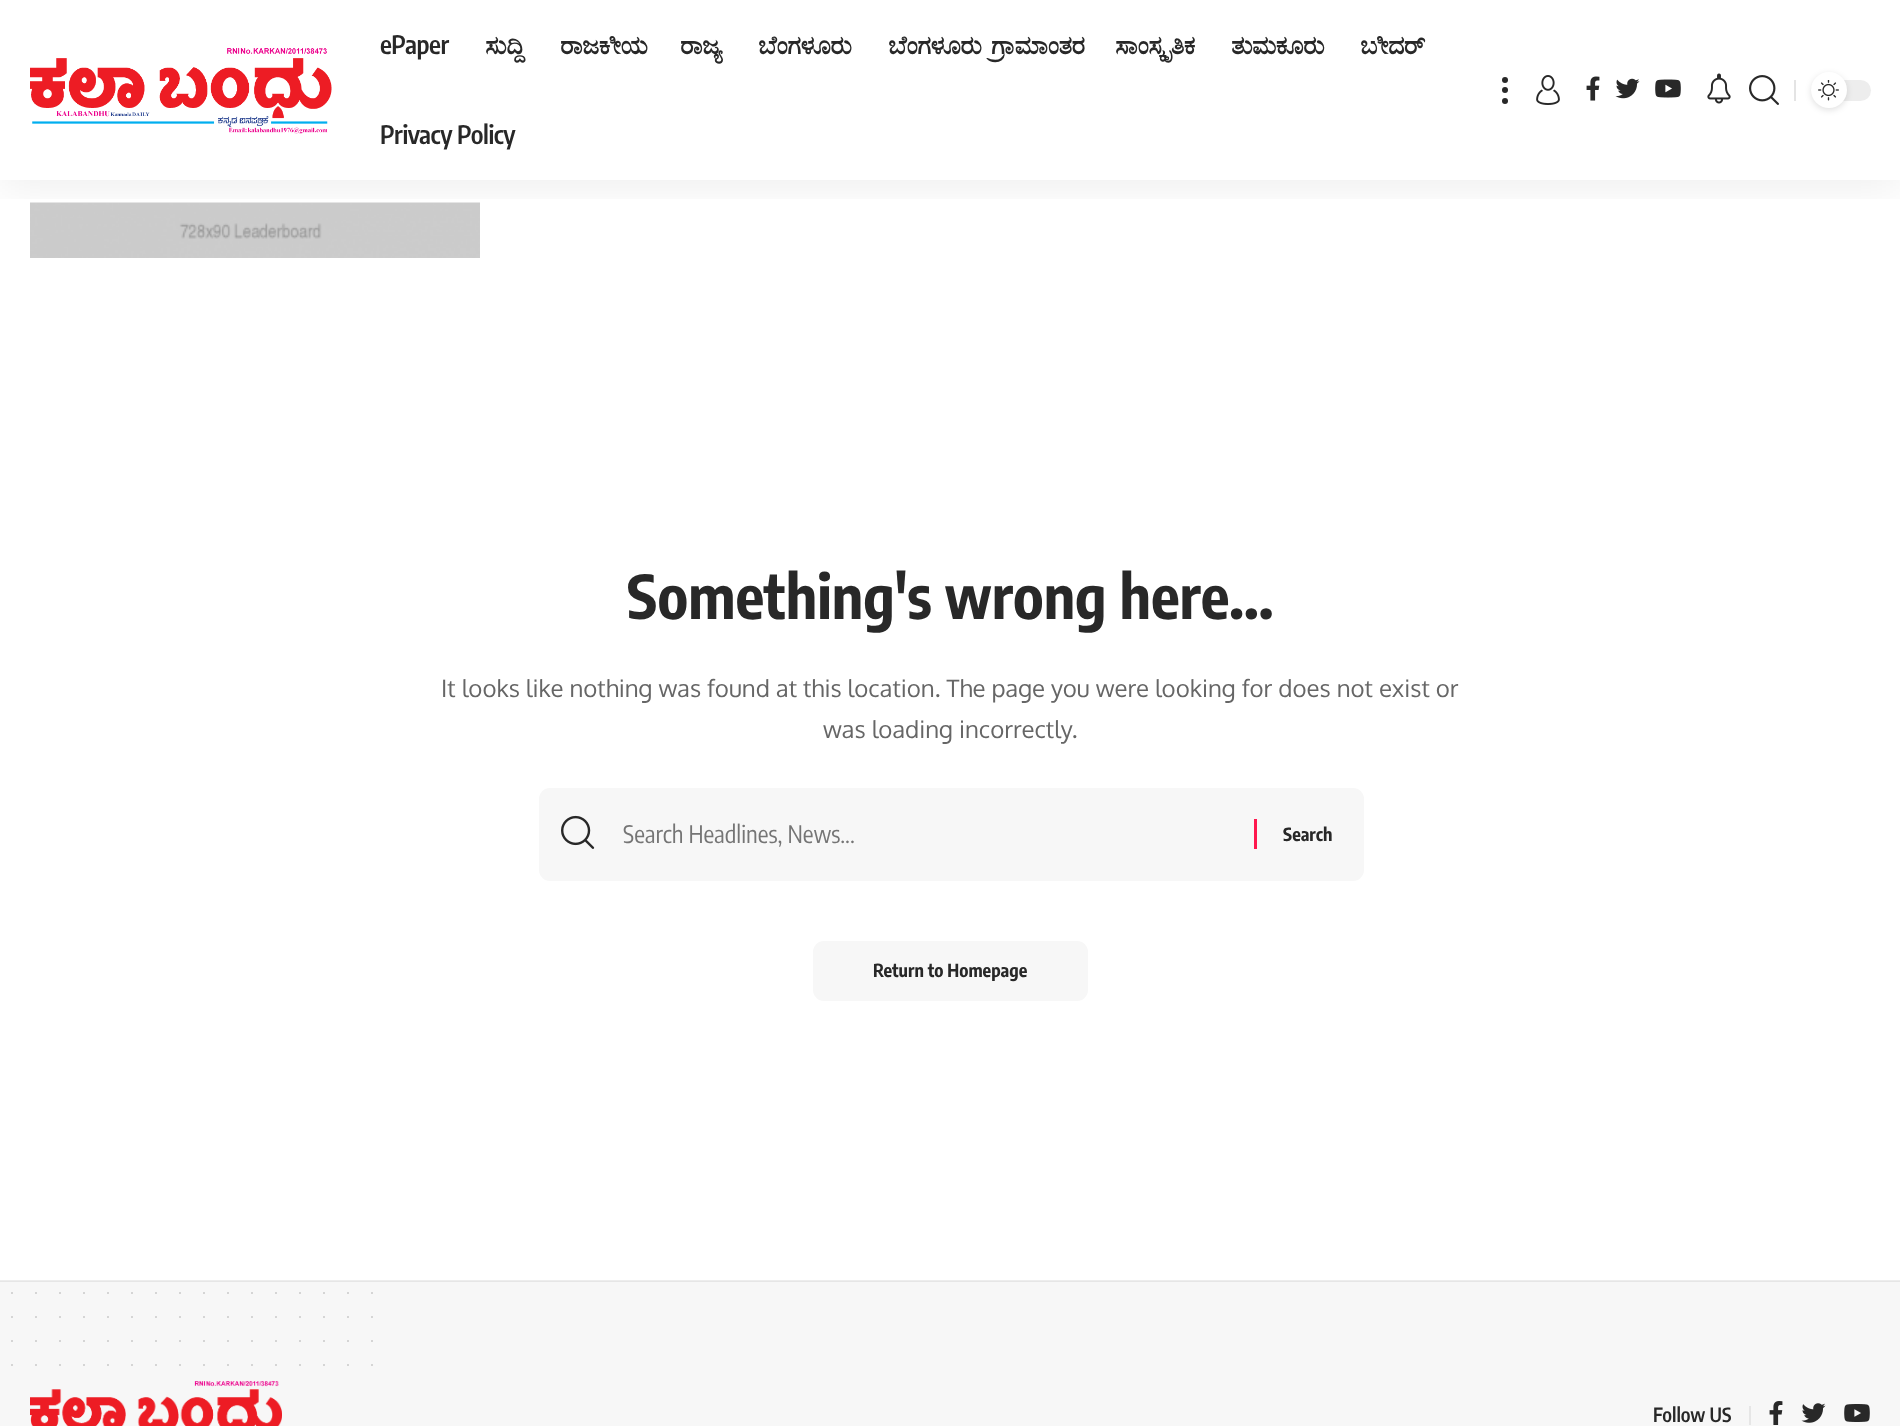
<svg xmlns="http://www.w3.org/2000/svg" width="1900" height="1426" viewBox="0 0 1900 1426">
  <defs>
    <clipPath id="clip1"><rect x="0" y="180" width="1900" height="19"/></clipPath>
    <filter id="blur1" x="-50%" y="-200%" width="200%" height="500%"><feGaussianBlur stdDeviation="22.5"/></filter>
    <filter id="blur2" x="-50%" y="-200%" width="200%" height="500%"><feGaussianBlur stdDeviation="3"/></filter>
  </defs>
  <rect width="100%" height="100%" fill="#ffffff"/>
  <rect x="0" y="1282" width="1900" height="144" fill="#f7f7f7"/>
  <image x="30" y="202" width="450" height="56" href="img9.png"/>
  <g clip-path="url(#clip1)">
    <rect x="0" y="6" width="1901" height="180" fill="#000000" fill-opacity="0.07" filter="url(#blur1)"/>
  </g>
  <image x="30" y="48" width="302" height="86" href="img1.png"/>
  <text x="380" y="54" font-family="Encode Sans Condensed" font-size="25.5" font-weight="600" letter-spacing="-0.5" fill="#282828">ePaper</text>
  <text x="485" y="54" font-family="FreeSerif" font-size="25.5" font-weight="bold" letter-spacing="-0.5" fill="#282828">ಸುದ್ದಿ</text>
  <text x="560" y="54" font-family="FreeSerif" font-size="25.5" font-weight="bold" letter-spacing="-0.5" fill="#282828">ರಾಜಕೀಯ</text>
  <text x="680" y="54" font-family="FreeSerif" font-size="25.5" font-weight="bold" letter-spacing="-0.5" fill="#282828">ರಾಜ್ಯ</text>
  <text x="758" y="54" font-family="FreeSerif" font-size="25.5" font-weight="bold" letter-spacing="-0.5" fill="#282828">ಬೆಂಗಳೂರು</text>
  <text x="888" y="54" word-spacing="4" font-family="FreeSerif" font-size="25.5" font-weight="bold" letter-spacing="-0.5" fill="#282828">ಬೆಂಗಳೂರು ಗ್ರಾಮಾಂತರ</text>
  <text x="1115" y="54" font-family="FreeSerif" font-size="25.5" font-weight="bold" letter-spacing="-0.5" fill="#282828">ಸಾಂಸ್ಕೃತಿಕ</text>
  <text x="1231" y="54" font-family="FreeSerif" font-size="25.5" font-weight="bold" letter-spacing="-0.5" fill="#282828">ತುಮಕೂರು</text>
  <text x="1360" y="54" font-family="FreeSerif" font-size="25.5" font-weight="bold" letter-spacing="-0.5" fill="#282828">ಬೀದರ್</text>
  <text x="380" y="144" font-family="Encode Sans Condensed" font-size="25.5" font-weight="600" letter-spacing="-0.5" fill="#282828">Privacy Policy</text>
  <circle cx="1505" cy="80" r="3" fill="#282828"/>
  <circle cx="1505" cy="90" r="3" fill="#282828"/>
  <circle cx="1505" cy="101" r="3" fill="#282828"/>
  <image x="1536" y="75" width="24" height="30" href="img2.png"/>
  <image x="1586" y="76" width="14" height="25" href="img3.png"/>
  <image x="1615" y="78" width="25" height="21" href="img4.png"/>
  <image x="1655" y="79" width="26" height="19" href="img5.png"/>
  <image x="1707" y="73" width="24" height="31" href="img6.png"/>
  <image x="1749" y="75" width="30" height="30" href="img7.png"/>
  <rect x="1794" y="80" width="2" height="21" fill="#e4e4e4"/>
  <rect x="1811" y="80" width="60" height="21" rx="10.5" fill="#ededed"/>
  <rect x="1811" y="74" width="36" height="36" rx="18" fill="#000000" fill-opacity="0.12" filter="url(#blur2)"/>
  <circle cx="1829" cy="90" r="18" fill="#ffffff"/>
  <image x="1818" y="80" width="21" height="21" href="img8.png"/>
  <text x="627" y="619" font-family="Encode Sans Condensed" font-size="60" font-weight="bold" fill="#282828">Something's wrong here...</text>
  <text x="441" y="697" font-family="Oxygen" font-size="24" fill="#666666">It looks like nothing was found at this location. The page you were looking for does not exist or</text>
  <text x="823" y="738" font-family="Oxygen" font-size="24" fill="#666666">was loading incorrectly.</text>
  <rect x="539" y="788" width="825" height="93" rx="11" fill="#f7f7f7"/>
  <image x="561" y="815" width="34" height="34" href="img10.png"/>
  <text x="623" y="843" font-family="Encode Sans Condensed" font-size="24" fill="#757575">Search Headlines, News...</text>
  <rect x="1254" y="819" width="3" height="30" fill="#ff184e"/>
  <text x="1283" y="841" font-family="Encode Sans Condensed" font-size="18" font-weight="bold" fill="#282828">Search</text>
  <rect x="813" y="941" width="275" height="60" rx="11" fill="#f7f7f7"/>
  <text x="873" y="977" font-family="Encode Sans Condensed" font-size="18" font-weight="bold" fill="#282828">Return to Homepage</text>
  <rect x="0" y="1280" width="1900" height="1" fill="#ededed"/>
  <rect x="0" y="1281" width="1900" height="1" fill="#e6e6e6"/>
  <path d="M12 1293H372.3" fill="none" stroke="#cdcdcd" stroke-width="2.2" stroke-linecap="round" stroke-dasharray="0 24"/>
  <path d="M12 1317H372.3" fill="none" stroke="#cdcdcd" stroke-width="2.2" stroke-linecap="round" stroke-dasharray="0 24"/>
  <path d="M12 1341H372.3" fill="none" stroke="#cdcdcd" stroke-width="2.2" stroke-linecap="round" stroke-dasharray="0 24"/>
  <path d="M12 1365H372.3" fill="none" stroke="#cdcdcd" stroke-width="2.2" stroke-linecap="round" stroke-dasharray="0 24"/>
  <image x="30" y="1381" width="252" height="45" href="img11.png"/>
  <rect x="1749" y="1406" width="2" height="19" fill="#e6e6e6"/>
  <text x="1653" y="1422" font-family="Encode Sans Condensed" font-size="19.5" font-weight="600" fill="#282828">Follow US</text>
  <image x="1769" y="1401" width="14" height="24" href="img12.png"/>
  <image x="1801" y="1403" width="25" height="20" href="img13.png"/>
  <image x="1844" y="1404" width="26" height="18" href="img14.png"/>
</svg>
